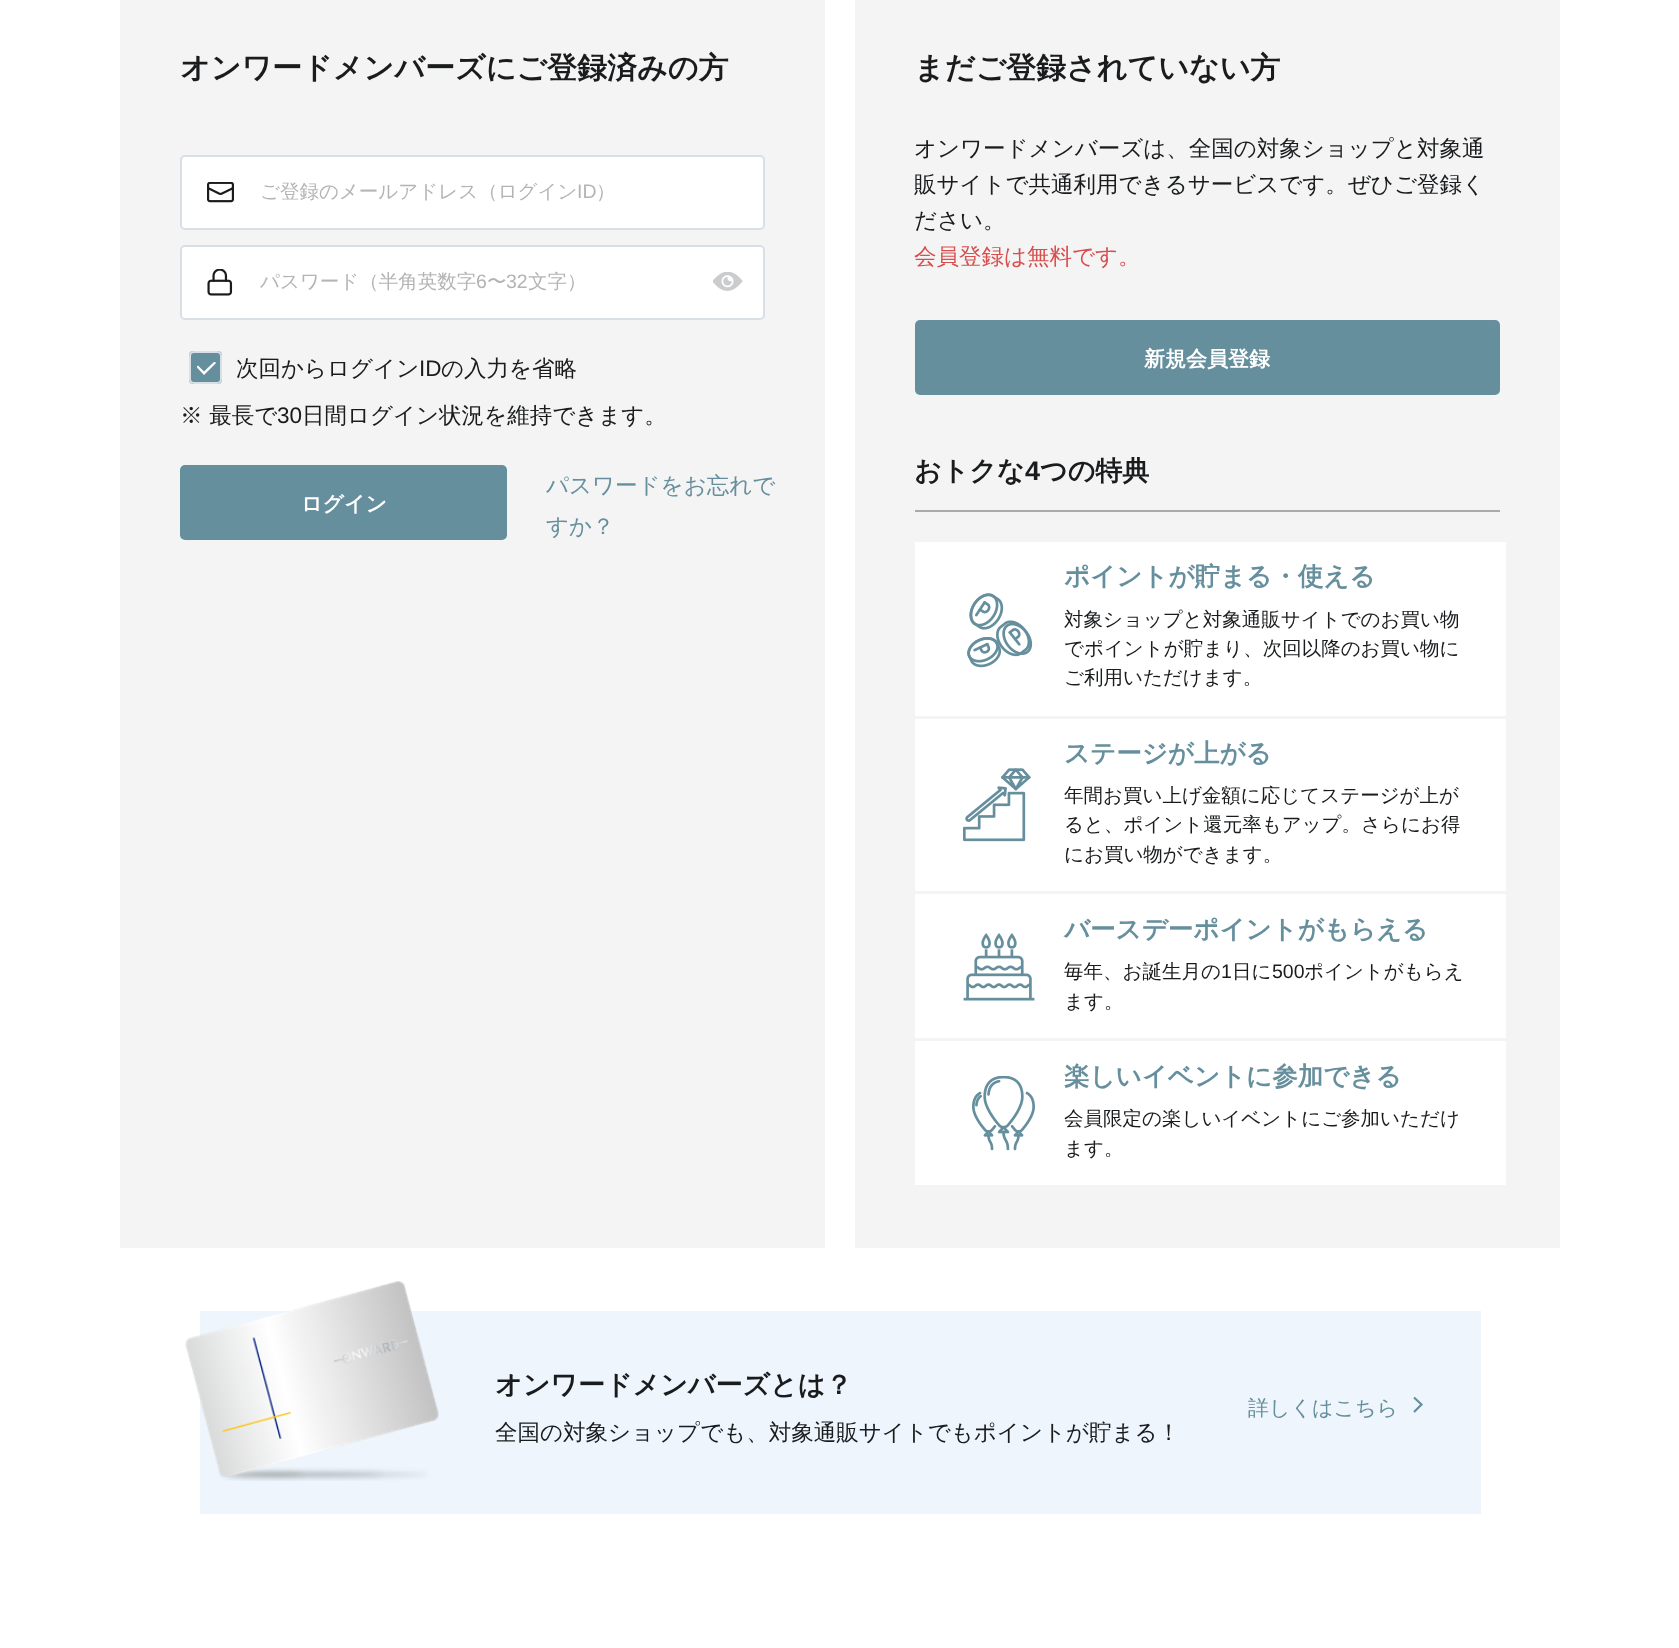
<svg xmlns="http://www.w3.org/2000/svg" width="1679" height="1648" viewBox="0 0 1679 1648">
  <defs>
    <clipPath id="clip1"><rect x="197" y="362" width="19" height="13"/></clipPath>
  </defs>
  <rect width="100%" height="100%" fill="#ffffff"/>
  <rect x="120" y="0" width="705" height="1248" fill="#f4f4f4"/>
  <text x="180" y="78" font-family="WenQuanYi Zen Hei" font-size="30" font-weight="bold" fill="#191b1d">オンワードメンバーズにご登録済みの方</text>
  <rect x="181" y="156" width="583" height="73" rx="4" fill="#ffffff" stroke="#d9dfe6" stroke-width="2"/>
  <image x="207" y="182" width="27" height="21" href="img1.png"/>
  <text x="260" y="198" font-family="WenQuanYi Zen Hei" font-size="19.5" font-weight="500" fill="#b4b4b4">ご登録のメールアドレス（ログイン</text>
  <text x="577" y="198" font-family="Liberation Sans" font-size="19.5" fill="#b4b4b4">ID</text>
  <text x="596" y="198" font-family="WenQuanYi Zen Hei" font-size="19.5" font-weight="500" fill="#b4b4b4">）</text>
  <rect x="181" y="246" width="583" height="73" rx="4" fill="#ffffff" stroke="#d9dfe6" stroke-width="2"/>
  <image x="207" y="269" width="26" height="27" href="img2.png"/>
  <text x="260" y="288" font-family="WenQuanYi Zen Hei" font-size="19.5" font-weight="500" fill="#b4b4b4">パスワード（半角英数字</text>
  <text x="476" y="288" font-family="Liberation Sans" font-size="19.5" fill="#b4b4b4">6</text>
  <text x="487" y="288" font-family="WenQuanYi Zen Hei" font-size="19.5" font-weight="500" fill="#b4b4b4">〜</text>
  <text x="506" y="288" font-family="Liberation Sans" font-size="19.5" fill="#b4b4b4">32</text>
  <text x="528" y="288" font-family="WenQuanYi Zen Hei" font-size="19.5" font-weight="500" fill="#b4b4b4">文字）</text>
  <image x="713" y="272" width="30" height="19" href="img3.png"/>
  <rect x="190" y="352" width="31" height="31" rx="2" fill="none" stroke="#d9dfe6" stroke-width="2"/>
  <rect x="189" y="351" width="33" height="33" rx="5" fill="#668f9d"/>
  <g clip-path="url(#clip1)">
    <path d="M204 375L196.5 367L198 365.5L204 371.5L214.5 361.5L216 363Z" fill="#ffffff"/>
  </g>
  <rect x="190" y="352" width="31" height="31" rx="4" fill="none" stroke="#d9dfe6" stroke-width="2"/>
  <text x="236" y="376" font-family="WenQuanYi Zen Hei" font-size="22.5" font-weight="500" fill="#191b1d">次回からログイン</text>
  <text x="419" y="376" font-family="Liberation Sans" font-size="22.5" fill="#191b1d">ID</text>
  <text x="441" y="376" font-family="WenQuanYi Zen Hei" font-size="22.5" font-weight="500" fill="#191b1d">の入力を省略</text>
  <text x="180" y="423" font-family="WenQuanYi Zen Hei" font-size="22.5" font-weight="500" fill="#191b1d">※ 最長で</text>
  <text x="277" y="423" font-family="Liberation Sans" font-size="22.5" fill="#191b1d">30</text>
  <text x="302" y="423" font-family="WenQuanYi Zen Hei" font-size="22.5" font-weight="500" fill="#191b1d">日間ログイン状況を維持できます。</text>
  <rect x="180" y="465" width="327" height="75" rx="5" fill="#668f9d"/>
  <text x="301" y="511" font-family="WenQuanYi Zen Hei" font-size="21" font-weight="bold" fill="#ffffff">ログイン</text>
  <text x="546" y="493" font-family="WenQuanYi Zen Hei" font-size="22.5" font-weight="500" fill="#668f9d">パスワードをお忘れで</text>
  <text x="546" y="534" font-family="WenQuanYi Zen Hei" font-size="22.5" font-weight="500" fill="#668f9d">すか？</text>
  <rect x="855" y="0" width="705" height="1248" fill="#f4f4f4"/>
  <text x="914" y="78" font-family="WenQuanYi Zen Hei" font-size="30" font-weight="bold" fill="#191b1d">まだご登録されていない方</text>
  <text x="914" y="156" font-family="WenQuanYi Zen Hei" font-size="22.5" font-weight="500" fill="#191b1d">オンワードメンバーズは、全国の対象ショップと対象通</text>
  <text x="914" y="192" font-family="WenQuanYi Zen Hei" font-size="22.5" font-weight="500" fill="#191b1d">販サイトで共通利用できるサービスです。ぜひご登録く</text>
  <text x="914" y="228" font-family="WenQuanYi Zen Hei" font-size="22.5" font-weight="500" fill="#191b1d">ださい。</text>
  <text x="914" y="264" font-family="WenQuanYi Zen Hei" font-size="22.5" font-weight="500" fill="#d94d4d">会員登録は無料です。</text>
  <rect x="915" y="320" width="585" height="75" rx="5" fill="#668f9d"/>
  <text x="1144" y="366" font-family="WenQuanYi Zen Hei" font-size="21" font-weight="bold" fill="#ffffff">新規会員登録</text>
  <rect x="915" y="510" width="585" height="2" fill="#aaaaaa"/>
  <text x="914" y="480" font-family="WenQuanYi Zen Hei" font-size="27" font-weight="bold" fill="#191b1d">おトクな</text>
  <text x="1025" y="480" font-family="Liberation Sans" font-size="27" font-weight="bold" fill="#191b1d">4</text>
  <text x="1040" y="480" font-family="WenQuanYi Zen Hei" font-size="27" font-weight="bold" fill="#191b1d">つの特典</text>
  <rect x="915" y="542" width="591" height="174" fill="#ffffff"/>
  <image x="967" y="593" width="66" height="75" href="img4.png"/>
  <text x="1064" y="585" font-family="WenQuanYi Zen Hei" font-size="25.5" font-weight="bold" fill="#668f9d">ポイントが貯まる・使える</text>
  <text x="1064" y="626" font-family="WenQuanYi Zen Hei" font-size="19.5" font-weight="500" fill="#191b1d">対象ショップと対象通販サイトでのお買い物</text>
  <text x="1064" y="655" font-family="WenQuanYi Zen Hei" font-size="19.5" font-weight="500" fill="#191b1d">でポイントが貯まり、次回以降のお買い物に</text>
  <text x="1064" y="684" font-family="WenQuanYi Zen Hei" font-size="19.5" font-weight="500" fill="#191b1d">ご利用いただけます。</text>
  <rect x="915" y="719" width="591" height="172" fill="#ffffff"/>
  <image x="963" y="768" width="68" height="74" href="img5.png"/>
  <text x="1064" y="762" font-family="WenQuanYi Zen Hei" font-size="25.5" font-weight="bold" fill="#668f9d">ステージが上がる</text>
  <text x="1064" y="802" font-family="WenQuanYi Zen Hei" font-size="19.5" font-weight="500" fill="#191b1d">年間お買い上げ金額に応じてステージが上が</text>
  <text x="1064" y="831" font-family="WenQuanYi Zen Hei" font-size="19.5" font-weight="500" fill="#191b1d">ると、ポイント還元率もアップ。さらにお得</text>
  <text x="1064" y="861" font-family="WenQuanYi Zen Hei" font-size="19.5" font-weight="500" fill="#191b1d">にお買い物ができます。</text>
  <rect x="915" y="894" width="591" height="144" fill="#ffffff"/>
  <image x="963" y="933" width="72" height="68" href="img6.png"/>
  <text x="1064" y="938" font-family="WenQuanYi Zen Hei" font-size="25.5" font-weight="bold" fill="#668f9d">バースデーポイントがもらえる</text>
  <text x="1064" y="978" font-family="WenQuanYi Zen Hei" font-size="19.5" font-weight="500" fill="#191b1d">毎年、お誕生月の</text>
  <text x="1221" y="978" font-family="Liberation Sans" font-size="19.5" fill="#191b1d">1</text>
  <text x="1232" y="978" font-family="WenQuanYi Zen Hei" font-size="19.5" font-weight="500" fill="#191b1d">日に</text>
  <text x="1272" y="978" font-family="Liberation Sans" font-size="19.5" fill="#191b1d">500</text>
  <text x="1304" y="978" font-family="WenQuanYi Zen Hei" font-size="19.5" font-weight="500" fill="#191b1d">ポイントがもらえ</text>
  <text x="1064" y="1008" font-family="WenQuanYi Zen Hei" font-size="19.5" font-weight="500" fill="#191b1d">ます。</text>
  <rect x="915" y="1041" width="591" height="144" fill="#ffffff"/>
  <image x="972" y="1076" width="63" height="75" href="img7.png"/>
  <text x="1064" y="1085" font-family="WenQuanYi Zen Hei" font-size="25.5" font-weight="bold" fill="#668f9d">楽しいイベントに参加できる</text>
  <text x="1064" y="1125" font-family="WenQuanYi Zen Hei" font-size="19.5" font-weight="500" fill="#191b1d">会員限定の楽しいイベントにご参加いただけ</text>
  <text x="1064" y="1155" font-family="WenQuanYi Zen Hei" font-size="19.5" font-weight="500" fill="#191b1d">ます。</text>
  <rect x="200" y="1311" width="1281" height="203" fill="#eef5fc"/>
  <image x="185" y="1281" width="254" height="200" href="img8.png"/>
  <text x="495" y="1394" font-family="WenQuanYi Zen Hei" font-size="27" font-weight="bold" fill="#191b1d">オンワードメンバーズとは？</text>
  <text x="495" y="1440" font-family="WenQuanYi Zen Hei" font-size="22.5" font-weight="500" fill="#191b1d">全国の対象ショップでも、対象通販サイトでもポイントが貯まる！</text>
  <text x="1248" y="1415" font-family="WenQuanYi Zen Hei" font-size="21" font-weight="500" fill="#668f9d">詳しくはこちら</text>
  <path d="M1414 1412L1421.5 1404.5L1414 1397.5" fill="none" stroke="#668f9d" stroke-width="2.2"/>
</svg>
